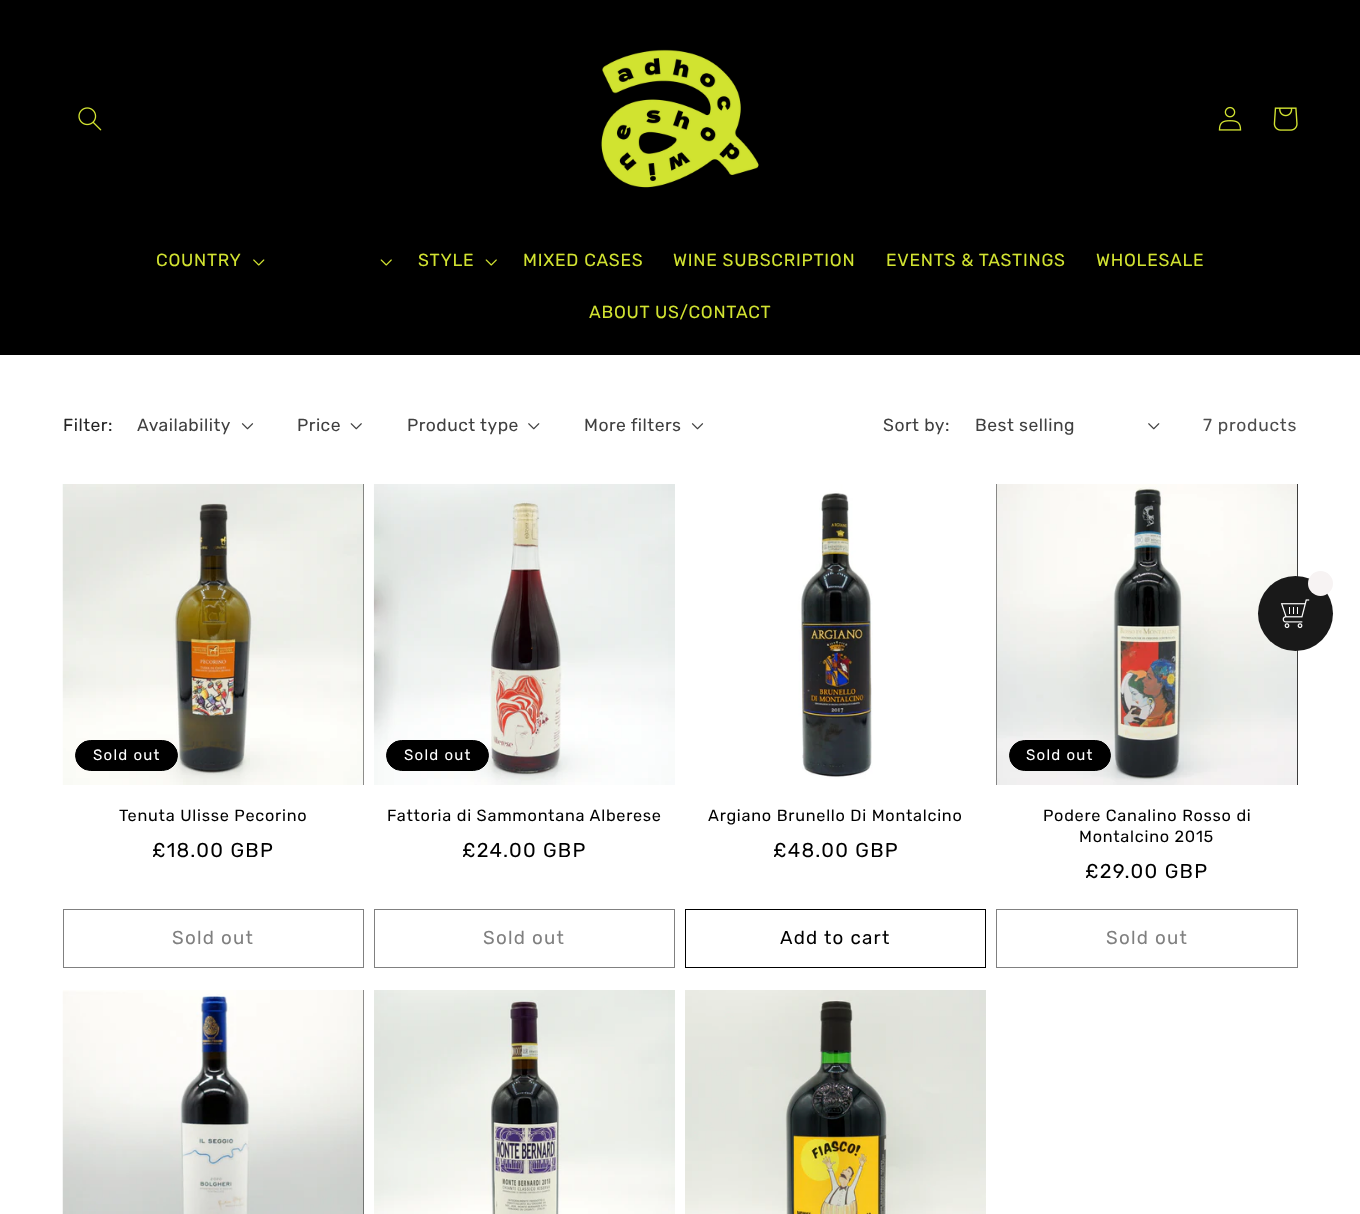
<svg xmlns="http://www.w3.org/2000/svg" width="1360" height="1214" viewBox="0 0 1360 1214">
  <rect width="100%" height="100%" fill="#ffffff"/>
  <rect x="0" y="0" width="1360" height="355" fill="#000000"/>
  <image x="78" y="107" width="24" height="24" href="img1.png"/>
  <image x="601" y="49" width="158" height="139" href="img2.png"/>
  <image x="1218" y="106" width="24" height="25" href="img3.png"/>
  <image x="1273" y="107" width="25" height="24" href="img4.png"/>
  <text x="156" y="266" font-family="Rubik" font-size="17.5" letter-spacing="0.75" fill="#d2e331">COUNTRY</text>
  <image x="253" y="259" width="12" height="7" href="img5.png"/>
  <image x="380" y="259" width="12" height="7" href="img6.png"/>
  <text x="418" y="266" font-family="Rubik" font-size="17.5" letter-spacing="0.75" fill="#d2e331">STYLE</text>
  <image x="485" y="259" width="12" height="7" href="img6.png"/>
  <text x="523" y="266" font-family="Rubik" font-size="17.5" letter-spacing="0.75" fill="#d2e331">MIXED CASES</text>
  <text x="673" y="266" font-family="Rubik" font-size="17.5" letter-spacing="0.75" fill="#d2e331">WINE SUBSCRIPTION</text>
  <text x="886" y="266" font-family="Rubik" font-size="17.5" letter-spacing="0.75" fill="#d2e331">EVENTS &amp; TASTINGS</text>
  <text x="1096" y="266" font-family="Rubik" font-size="17.5" letter-spacing="0.75" fill="#d2e331">WHOLESALE</text>
  <text x="589" y="318" font-family="Rubik" font-size="17.5" letter-spacing="0.75" fill="#d2e331">ABOUT US/CONTACT</text>
  <text x="63" y="431" font-family="Rubik" font-size="17.5" letter-spacing="0.5" fill="#262626">Filter:</text>
  <text x="137" y="431" font-family="Rubik" font-size="17.5" letter-spacing="0.5" fill="#404040">Availability</text>
  <image x="241" y="423" width="13" height="7" href="img7.png"/>
  <text x="297" y="431" font-family="Rubik" font-size="17.5" letter-spacing="0.5" fill="#404040">Price</text>
  <image x="350" y="423" width="12" height="7" href="img8.png"/>
  <text x="407" y="431" font-family="Rubik" font-size="17.5" letter-spacing="0.5" fill="#404040">Product type</text>
  <image x="528" y="423" width="12" height="7" href="img9.png"/>
  <text x="584" y="431" font-family="Rubik" font-size="17.5" letter-spacing="0.5" fill="#404040">More filters</text>
  <image x="691" y="423" width="13" height="7" href="img7.png"/>
  <text x="883" y="431" font-family="Rubik" font-size="17.5" letter-spacing="0.5" fill="#404040">Sort by:</text>
  <text x="975" y="431" font-family="Rubik" font-size="17.5" letter-spacing="0.5" fill="#404040">Best selling</text>
  <image x="1148" y="423" width="12" height="7" href="img9.png"/>
  <text x="1203" y="431" font-family="Rubik" font-size="17.5" letter-spacing="0.75" fill="#4d4d4d">7 products</text>
  <rect x="363" y="484" width="1" height="301" fill="#000000"/>
  <image x="62" y="484" width="302" height="301" href="img10.png"/>
  <rect x="75.5" y="740.5" width="102" height="30" rx="15" fill="#000000" stroke="#000000"/>
  <text x="93" y="760" font-family="Rubik" font-size="15" letter-spacing="1.25" fill="#ffffff">Sold out</text>
  <text x="119" y="821" font-family="Rubik" font-size="16.25" letter-spacing="0.75" fill="#000000">Tenuta Ulisse Pecorino</text>
  <text x="152" y="857" font-family="Rubik" font-size="20" letter-spacing="1.25" fill="#000000">£18.00 GBP</text>
  <rect x="63.5" y="909.5" width="300" height="58" fill="none" stroke="#808080"/>
  <text x="172" y="944" font-family="Rubik" font-size="18.75" letter-spacing="1.25" fill="#808080">Sold out</text>
  <image x="373" y="484" width="302" height="301" href="img11.png"/>
  <rect x="386.5" y="740.5" width="102" height="30" rx="15" fill="#000000" stroke="#000000"/>
  <text x="404" y="760" font-family="Rubik" font-size="15" letter-spacing="1.25" fill="#ffffff">Sold out</text>
  <text x="387" y="821" font-family="Rubik" font-size="16.25" letter-spacing="0.75" fill="#000000">Fattoria di Sammontana Alberese</text>
  <text x="462" y="857" font-family="Rubik" font-size="20" letter-spacing="1.25" fill="#000000">£24.00 GBP</text>
  <rect x="374.5" y="909.5" width="300" height="58" fill="none" stroke="#808080"/>
  <text x="483" y="944" font-family="Rubik" font-size="18.75" letter-spacing="1.25" fill="#808080">Sold out</text>
  <image x="685" y="484" width="301" height="301" href="img12.png"/>
  <text x="708" y="821" font-family="Rubik" font-size="16.25" letter-spacing="0.75" fill="#000000">Argiano Brunello Di Montalcino</text>
  <text x="773" y="857" font-family="Rubik" font-size="20" letter-spacing="1.25" fill="#000000">£48.00 GBP</text>
  <rect x="685.5" y="909.5" width="300" height="58" fill="none" stroke="#000000"/>
  <text x="780" y="944" font-family="Rubik" font-size="18.75" letter-spacing="1.25" fill="#000000">Add to cart</text>
  <rect x="996" y="484" width="302" height="301" fill="#000000"/>
  <image x="996" y="484" width="302" height="301" href="img13.png"/>
  <rect x="1009.5" y="740.5" width="101" height="30" rx="15" fill="#000000" stroke="#000000"/>
  <text x="1026" y="760" font-family="Rubik" font-size="15" letter-spacing="1.25" fill="#ffffff">Sold out</text>
  <text x="1043" y="821" font-family="Rubik" font-size="16.25" letter-spacing="0.75" fill="#000000">Podere Canalino Rosso di</text>
  <text x="1079" y="842" font-family="Rubik" font-size="16.25" letter-spacing="0.75" fill="#000000">Montalcino 2015</text>
  <text x="1085" y="878" font-family="Rubik" font-size="20" letter-spacing="1.25" fill="#000000">£29.00 GBP</text>
  <rect x="996.5" y="909.5" width="301" height="58" fill="none" stroke="#808080"/>
  <text x="1106" y="944" font-family="Rubik" font-size="18.75" letter-spacing="1.25" fill="#808080">Sold out</text>
  <rect x="363" y="990" width="1" height="224" fill="#000000"/>
  <image x="62" y="990" width="302" height="224" href="img14.png"/>
  <image x="374" y="990" width="301" height="224" href="img15.png"/>
  <image x="685" y="990" width="301" height="224" href="img16.png"/>
  <circle cx="1295.5" cy="613.5" r="37.5" fill="#191919"/>
  <circle cx="1320.5" cy="583.5" r="12.5" fill="#f7f3f3"/>
  <image x="1280" y="599" width="30" height="30" href="img17.png"/>
</svg>
